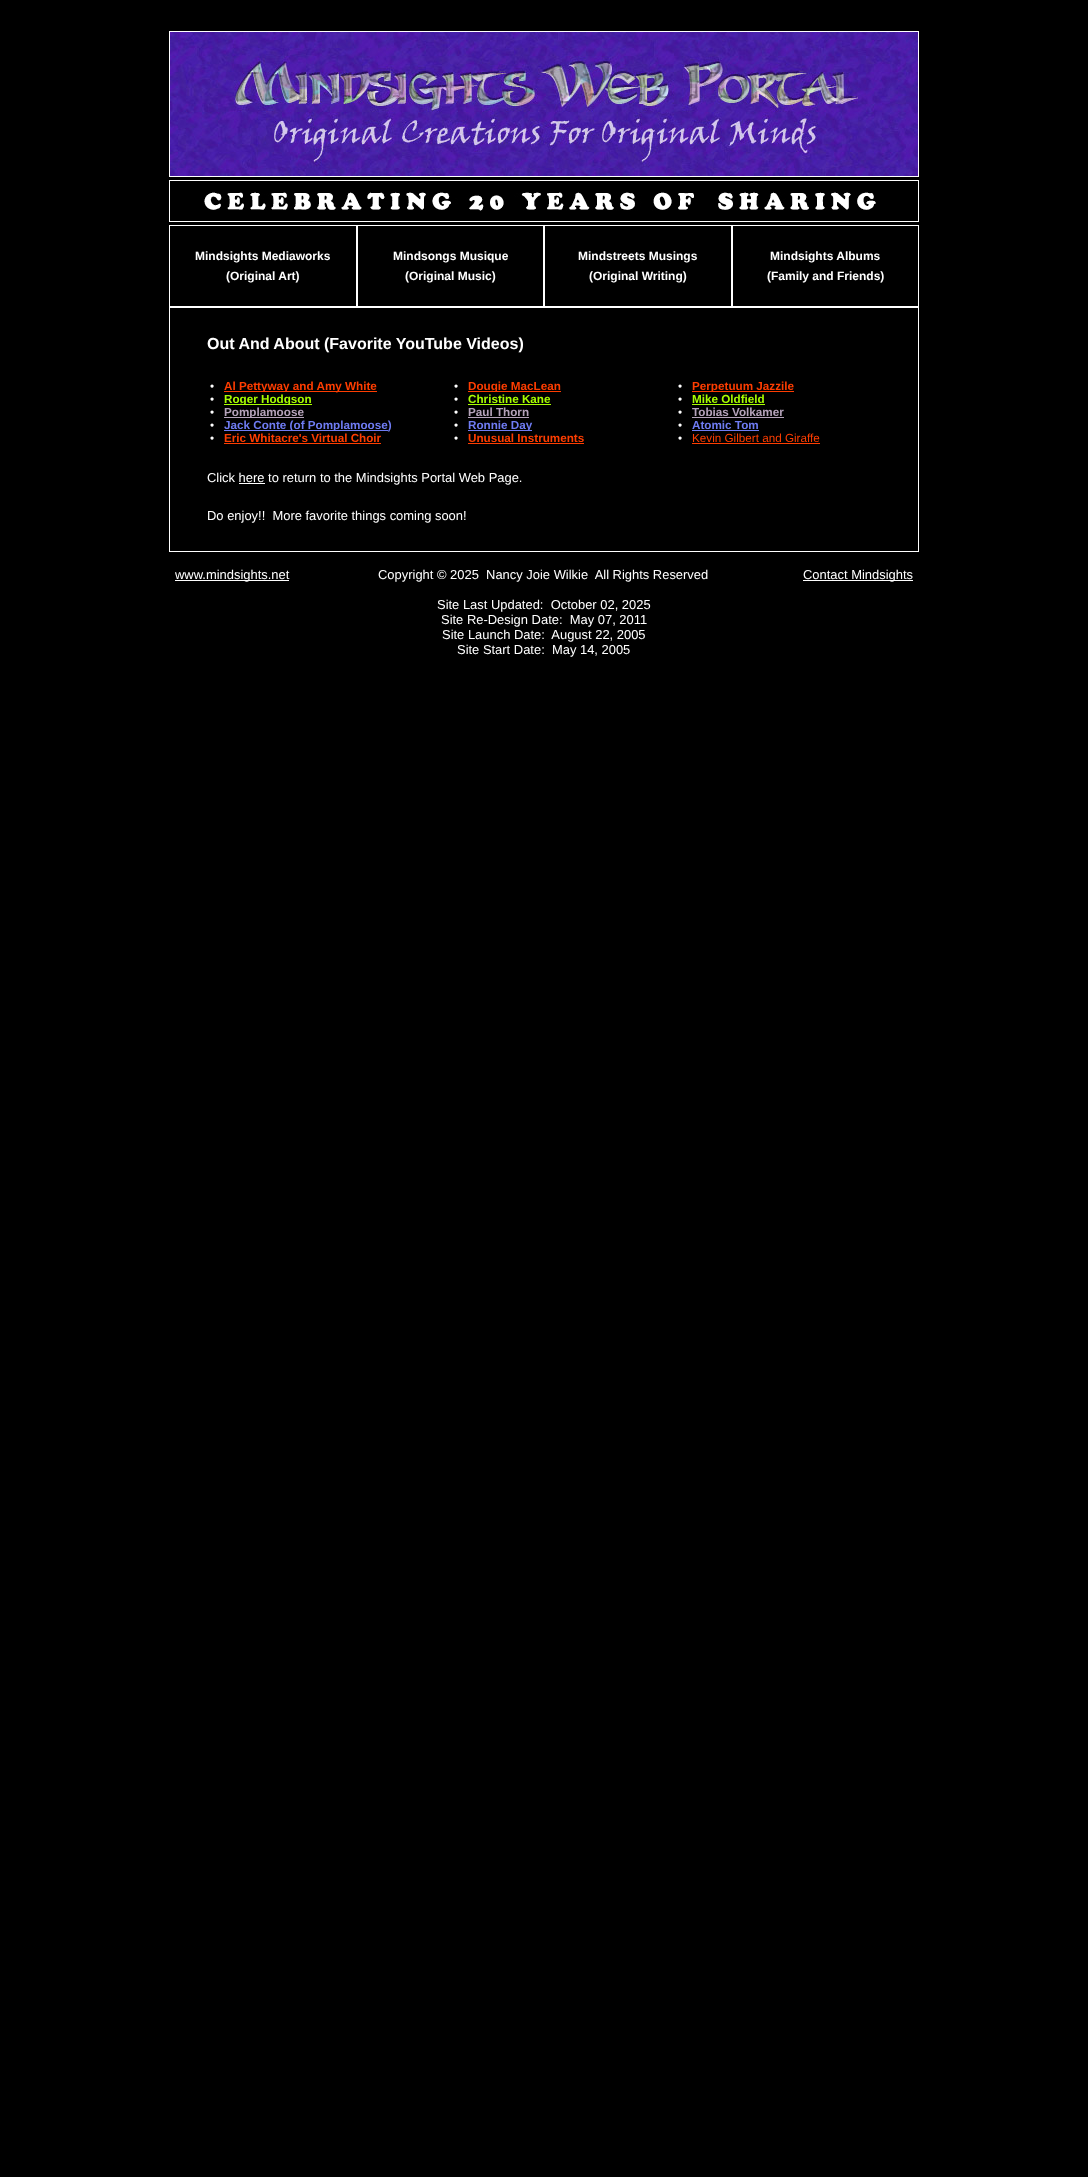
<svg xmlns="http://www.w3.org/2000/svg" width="1088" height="2177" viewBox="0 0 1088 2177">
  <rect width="100%" height="100%" fill="#000000"/>
  <rect x="169.5" y="31.5" width="749" height="145" fill="none" stroke="#ffffff"/>
  <image x="170" y="32" width="748" height="144" href="img1.png"/>
  <rect x="169.5" y="180.5" width="749" height="41" fill="none" stroke="#ffffff"/>
  <image x="204" y="192" width="672" height="19" href="img2.png"/>
  <rect x="169.5" y="225.5" width="187" height="81" fill="none" stroke="#ffffff"/>
  <text x="195" y="260" font-family="Liberation Sans" font-size="12" font-weight="bold" fill="#ffffff">Mindsights Mediaworks</text>
  <text x="226" y="280" font-family="Liberation Sans" font-size="12" font-weight="bold" fill="#ffffff">(Original Art)</text>
  <rect x="357.5" y="225.5" width="186" height="81" fill="none" stroke="#ffffff"/>
  <text x="393" y="260" font-family="Liberation Sans" font-size="12" font-weight="bold" fill="#ffffff">Mindsongs Musique</text>
  <text x="405" y="280" font-family="Liberation Sans" font-size="12" font-weight="bold" fill="#ffffff">(Original Music)</text>
  <rect x="544.5" y="225.5" width="187" height="81" fill="none" stroke="#ffffff"/>
  <text x="578" y="260" font-family="Liberation Sans" font-size="12" font-weight="bold" fill="#ffffff">Mindstreets Musings</text>
  <text x="589" y="280" font-family="Liberation Sans" font-size="12" font-weight="bold" fill="#ffffff">(Original Writing)</text>
  <rect x="732.5" y="225.5" width="186" height="81" fill="none" stroke="#ffffff"/>
  <text x="770" y="260" font-family="Liberation Sans" font-size="12" font-weight="bold" fill="#ffffff">Mindsights Albums</text>
  <text x="767" y="280" font-family="Liberation Sans" font-size="12" font-weight="bold" fill="#ffffff">(Family and Friends)</text>
  <rect x="169.5" y="307.5" width="749" height="244" fill="none" stroke="#ffffff"/>
  <text x="207" y="349" font-family="Liberation Sans" font-size="16" font-weight="bold" fill="#ffffff">Out And About (Favorite YouTube Videos)</text>
  <text x="210" y="390" font-family="Liberation Sans" font-size="11.7" fill="#ffffff">•</text>
  <rect x="224" y="391" width="153" height="1" fill="#fe3d01"/>
  <text x="224" y="390" font-family="Liberation Sans" font-size="11.7" font-weight="bold" fill="#fe3d01">Al Pettyway and Amy White</text>
  <text x="210" y="403" font-family="Liberation Sans" font-size="11.7" fill="#ffffff">•</text>
  <rect x="224" y="404" width="88" height="1" fill="#a8fe01"/>
  <text x="224" y="403" font-family="Liberation Sans" font-size="11.7" font-weight="bold" fill="#a8fe01">Roger Hodgson</text>
  <rect x="261" y="392" width="25" height="1" fill="#000000"/>
  <text x="210" y="416" font-family="Liberation Sans" font-size="11.7" fill="#ffffff">•</text>
  <rect x="224" y="417" width="80" height="1" fill="#b5a3ba"/>
  <text x="224" y="416" font-family="Liberation Sans" font-size="11.7" font-weight="bold" fill="#b5a3ba">Pomplamoose</text>
  <rect x="241" y="405" width="48" height="1" fill="#000000"/>
  <text x="210" y="429" font-family="Liberation Sans" font-size="11.7" fill="#ffffff">•</text>
  <rect x="224" y="430" width="164" height="1" fill="#6f7cf3"/>
  <text x="224" y="429" font-family="Liberation Sans" font-size="11.7" font-weight="bold" fill="#6f7cf3">Jack Conte (of Pomplamoose)</text>
  <rect x="250" y="418" width="2" height="1" fill="#000000"/>
  <text x="210" y="442" font-family="Liberation Sans" font-size="11.7" fill="#ffffff">•</text>
  <text x="224" y="442" font-family="Liberation Sans" font-size="11.7" font-weight="bold" fill="#fe3d01">Eric Whitacre's Virtual Choir</text>
  <rect x="291" y="431" width="45" height="1" fill="#000000"/>
  <rect x="224" y="443" width="157" height="1" fill="#fe3d01"/>
  <text x="454" y="390" font-family="Liberation Sans" font-size="11.7" fill="#ffffff">•</text>
  <rect x="468" y="391" width="93" height="1" fill="#fe3d01"/>
  <text x="468" y="390" font-family="Liberation Sans" font-size="11.7" font-weight="bold" fill="#fe3d01">Dougie MacLean</text>
  <text x="454" y="403" font-family="Liberation Sans" font-size="11.7" fill="#ffffff">•</text>
  <text x="468" y="403" font-family="Liberation Sans" font-size="11.7" font-weight="bold" fill="#a8fe01">Christine Kane</text>
  <rect x="492" y="392" width="4" height="1" fill="#000000"/>
  <rect x="468" y="404" width="83" height="1" fill="#a8fe01"/>
  <text x="454" y="416" font-family="Liberation Sans" font-size="11.7" fill="#ffffff">•</text>
  <text x="468" y="416" font-family="Liberation Sans" font-size="11.7" font-weight="bold" fill="#b5a3ba">Paul Thorn</text>
  <rect x="468" y="417" width="61" height="1" fill="#b5a3ba"/>
  <text x="454" y="429" font-family="Liberation Sans" font-size="11.7" fill="#ffffff">•</text>
  <rect x="468" y="430" width="64" height="1" fill="#6f7cf3"/>
  <text x="468" y="429" font-family="Liberation Sans" font-size="11.7" font-weight="bold" fill="#6f7cf3">Ronnie Day</text>
  <text x="454" y="442" font-family="Liberation Sans" font-size="11.7" fill="#ffffff">•</text>
  <text x="468" y="442" font-family="Liberation Sans" font-size="11.7" font-weight="bold" fill="#fe3d01">Unusual Instruments</text>
  <rect x="526" y="431" width="3" height="1" fill="#000000"/>
  <rect x="468" y="443" width="116" height="1" fill="#fe3d01"/>
  <text x="678" y="390" font-family="Liberation Sans" font-size="11.7" fill="#ffffff">•</text>
  <rect x="692" y="391" width="102" height="1" fill="#fe3d01"/>
  <text x="692" y="390" font-family="Liberation Sans" font-size="11.7" font-weight="bold" fill="#fe3d01">Perpetuum Jazzile</text>
  <text x="678" y="403" font-family="Liberation Sans" font-size="11.7" fill="#ffffff">•</text>
  <text x="692" y="403" font-family="Liberation Sans" font-size="11.7" font-weight="bold" fill="#a8fe01">Mike Oldfield</text>
  <rect x="711" y="392" width="3" height="1" fill="#000000"/>
  <rect x="692" y="404" width="73" height="1" fill="#a8fe01"/>
  <text x="678" y="416" font-family="Liberation Sans" font-size="11.7" fill="#ffffff">•</text>
  <text x="692" y="416" font-family="Liberation Sans" font-size="11.7" font-weight="bold" fill="#b5a3ba">Tobias Volkamer</text>
  <rect x="692" y="417" width="92" height="1" fill="#b5a3ba"/>
  <text x="678" y="429" font-family="Liberation Sans" font-size="11.7" fill="#ffffff">•</text>
  <text x="692" y="429" font-family="Liberation Sans" font-size="11.7" font-weight="bold" fill="#6f7cf3">Atomic Tom</text>
  <rect x="692" y="430" width="67" height="1" fill="#6f7cf3"/>
  <text x="678" y="442" font-family="Liberation Sans" font-size="11.7" fill="#ffffff">•</text>
  <text x="692" y="442" font-family="Liberation Sans" font-size="11.7" fill="#fe3d01">Kevin Gilbert and Giraffe</text>
  <rect x="692" y="443" width="128" height="1" fill="#fe3d01"/>
  <text x="207" y="482" font-family="Liberation Sans" font-size="12.95" fill="#ffffff">Click here to return to the Mindsights Portal Web Page.</text>
  <rect x="239" y="483" width="26" height="1" fill="#ffffff"/>
  <text x="207" y="520" font-family="Liberation Sans" font-size="12.95" fill="#ffffff" xml:space="preserve">Do enjoy!!  More favorite things coming soon!</text>
  <rect x="175" y="580" width="114" height="1" fill="#ffffff"/>
  <text x="175" y="579" font-family="Liberation Sans" font-size="12.95" fill="#ffffff">www.mindsights.net</text>
  <text x="378" y="579" font-family="Liberation Sans" font-size="12.95" fill="#ffffff" xml:space="preserve">Copyright © 2025  Nancy Joie Wilkie  All Rights Reserved</text>
  <text x="437" y="609" font-family="Liberation Sans" font-size="12.95" fill="#ffffff" xml:space="preserve">Site Last Updated:  October 02, 2025</text>
  <text x="441" y="624" font-family="Liberation Sans" font-size="12.95" fill="#ffffff" xml:space="preserve">Site Re-Design Date:  May 07, 2011</text>
  <text x="442" y="639" font-family="Liberation Sans" font-size="12.95" fill="#ffffff" xml:space="preserve">Site Launch Date:  August 22, 2005</text>
  <text x="457" y="654" font-family="Liberation Sans" font-size="12.95" fill="#ffffff" xml:space="preserve">Site Start Date:  May 14, 2005</text>
  <rect x="803" y="580" width="110" height="1" fill="#ffffff"/>
  <text x="803" y="579" font-family="Liberation Sans" font-size="12.95" fill="#ffffff">Contact Mindsights</text>
</svg>
